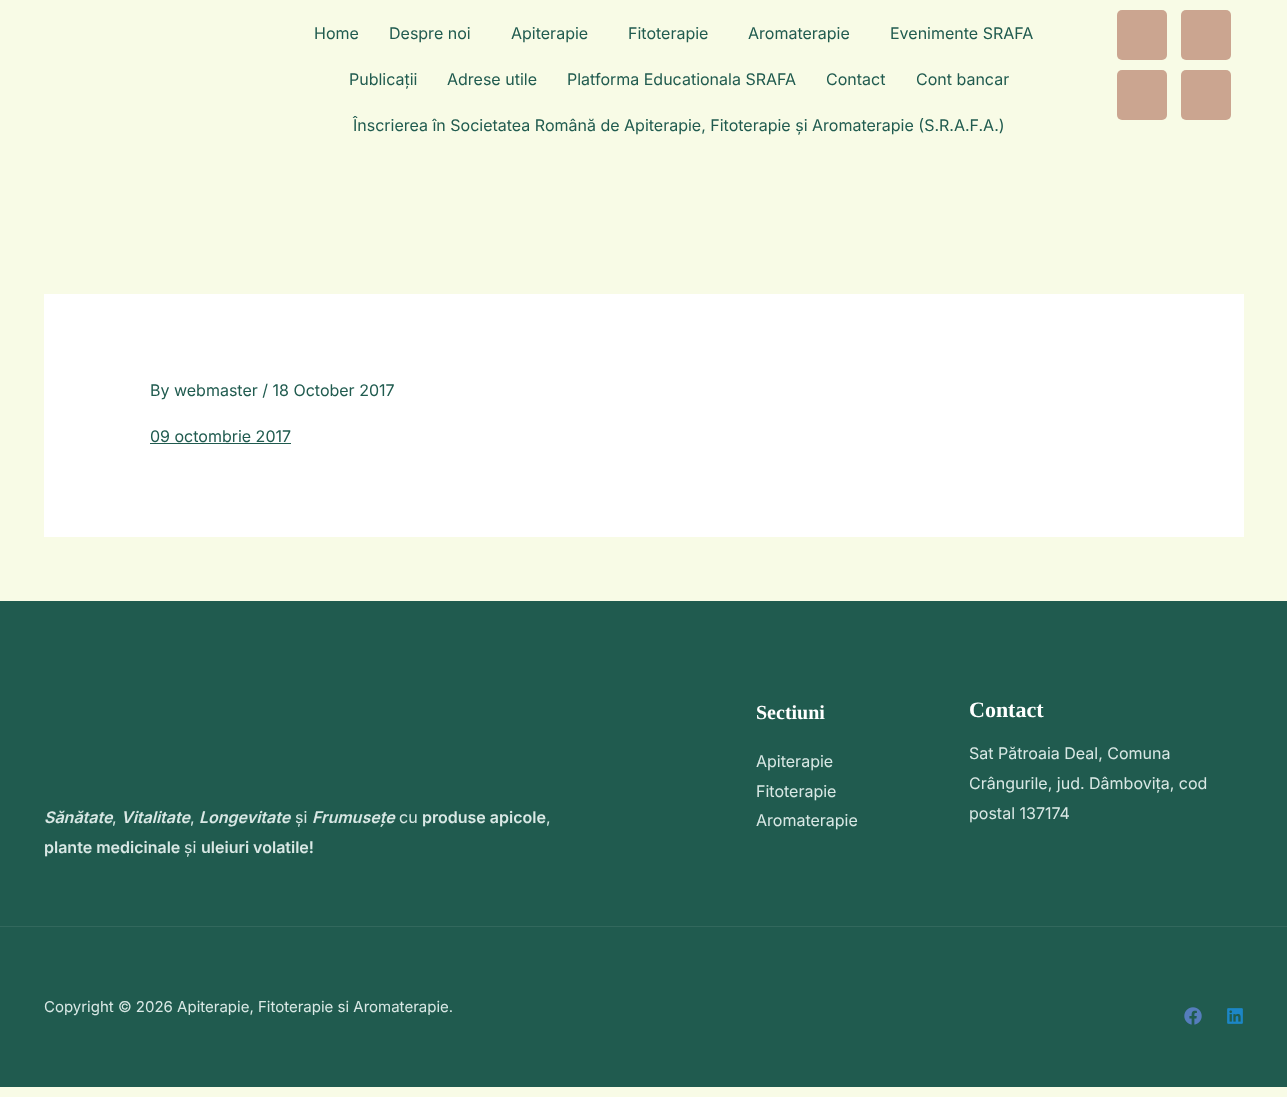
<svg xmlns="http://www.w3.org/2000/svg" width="1287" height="1097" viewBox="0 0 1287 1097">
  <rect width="100%" height="100%" fill="#f8fbe6"/>
  <text x="314" y="39" font-family="Inter" font-size="16" fill="#205b4f">Home</text>
  <text x="389" y="39" font-family="Inter" font-size="16" fill="#205b4f">Despre noi</text>
  <text x="511" y="39" font-family="Inter" font-size="16" fill="#205b4f">Apiterapie</text>
  <text x="628" y="39" font-family="Inter" font-size="16" fill="#205b4f">Fitoterapie</text>
  <text x="748" y="39" font-family="Inter" font-size="16" fill="#205b4f">Aromaterapie</text>
  <text x="890" y="39" font-family="Inter" font-size="16" fill="#205b4f">Evenimente SRAFA</text>
  <text x="349" y="85" font-family="Inter" font-size="16" fill="#205b4f">Publicații</text>
  <text x="447" y="85" font-family="Inter" font-size="16" fill="#205b4f">Adrese utile</text>
  <text x="567" y="85" font-family="Inter" font-size="16" fill="#205b4f">Platforma Educationala SRAFA</text>
  <text x="826" y="85" font-family="Inter" font-size="16" fill="#205b4f">Contact</text>
  <text x="916" y="85" font-family="Inter" font-size="16" fill="#205b4f">Cont bancar</text>
  <text x="353" y="131" font-family="Inter" font-size="16" fill="#205b4f">Înscrierea în Societatea Română de Apiterapie, Fitoterapie și Aromaterapie (S.R.A.F.A.)</text>
  <rect x="1117" y="10" width="50" height="50" rx="5" fill="#cba590"/>
  <rect x="1181" y="10" width="50" height="50" rx="5" fill="#cba590"/>
  <rect x="1117" y="70" width="50" height="50" rx="5" fill="#cba590"/>
  <rect x="1181" y="70" width="50" height="50" rx="5" fill="#cba590"/>
  <rect x="44" y="294" width="1200" height="243" fill="#ffffff"/>
  <text x="150" y="396" font-family="Inter" font-size="16" fill="#205b4f">By webmaster / 18 October 2017</text>
  <text x="150" y="442" font-family="Inter" font-size="16" fill="#205b4f">09 octombrie 2017</text>
  <rect x="150" y="443" width="141" height="1" fill="#205b4f"/>
  <rect x="0" y="601" width="1287" height="486" fill="#205b4f"/>
  <text x="44" y="823" font-family="Inter" font-size="16" font-weight="600" font-style="italic" fill="#d9e8e5">Sănătate</text>
  <text x="112" y="823" font-family="Inter" font-size="16" fill="#d9e8e5">,</text>
  <text x="121" y="823" font-family="Inter" font-size="16" font-weight="600" font-style="italic" fill="#d9e8e5">Vitalitate</text>
  <text x="190" y="823" font-family="Inter" font-size="16" fill="#d9e8e5">,</text>
  <text x="199" y="823" font-family="Inter" font-size="16" font-weight="600" font-style="italic" fill="#d9e8e5">Longevitate</text>
  <text x="295" y="823" font-family="Inter" font-size="16" fill="#d9e8e5">și</text>
  <text x="312" y="823" font-family="Inter" font-size="16" font-weight="600" font-style="italic" fill="#d9e8e5">Frumusețe</text>
  <text x="399" y="823" font-family="Inter" font-size="16" fill="#d9e8e5">cu</text>
  <text x="422" y="823" font-family="Inter" font-size="16" font-weight="600" fill="#d9e8e5">produse apicole</text>
  <text x="546" y="823" font-family="Inter" font-size="16" fill="#d9e8e5">,</text>
  <text x="44" y="853" font-family="Inter" font-size="16" font-weight="600" fill="#d9e8e5">plante medicinale</text>
  <text x="184" y="853" font-family="Inter" font-size="16" fill="#d9e8e5">și</text>
  <text x="201" y="853" font-family="Inter" font-size="16" font-weight="600" fill="#d9e8e5">uleiuri volatile!</text>
  <text x="756" y="719" font-family="Liberation Serif" font-size="20" font-weight="bold" fill="#ffffff">Sectiuni</text>
  <text x="756" y="767" font-family="Inter" font-size="16" fill="#d9e8e5">Apiterapie</text>
  <text x="756" y="797" font-family="Inter" font-size="16" fill="#d9e8e5">Fitoterapie</text>
  <text x="756" y="826" font-family="Inter" font-size="16" fill="#d9e8e5">Aromaterapie</text>
  <text x="969" y="717" font-family="Liberation Serif" font-size="22" font-weight="bold" fill="#ffffff">Contact</text>
  <text x="969" y="759" font-family="Inter" font-size="16" fill="#d9e8e5">Sat Pătroaia Deal, Comuna</text>
  <text x="969" y="789" font-family="Inter" font-size="16" fill="#d9e8e5">Crângurile, jud. Dâmbovița, cod</text>
  <text x="969" y="819" font-family="Inter" font-size="16" fill="#d9e8e5">postal 137174</text>
  <rect x="0" y="926" width="1287" height="1" fill="#32685d"/>
  <text x="44" y="1012" font-family="Inter" font-size="15" fill="#d9e8e5">Copyright © 2026 Apiterapie, Fitoterapie si Aromaterapie.</text>
  <image x="1184" y="1007" width="18" height="18" href="img1.png"/>
  <image x="1227" y="1008" width="16" height="16" href="img2.png"/>
</svg>
